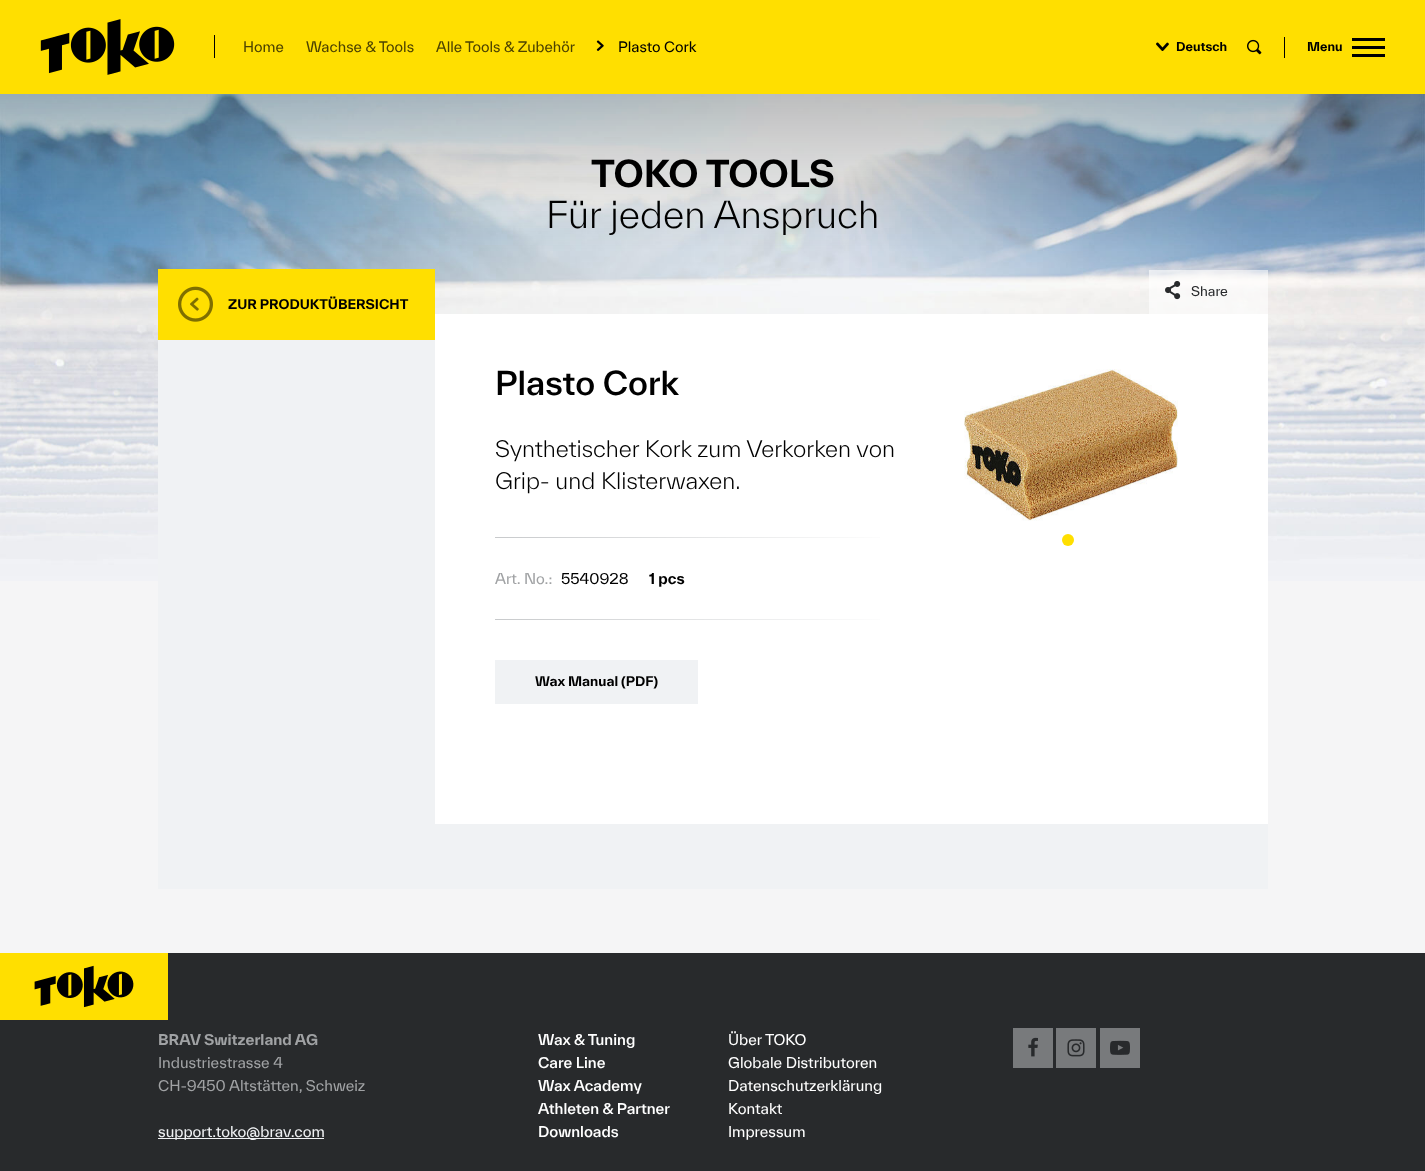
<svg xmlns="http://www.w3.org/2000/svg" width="1425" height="1171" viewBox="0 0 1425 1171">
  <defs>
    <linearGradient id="g1" gradientUnits="userSpaceOnUse" x1="495" y1="538" x2="898" y2="538"><stop offset="0" stop-color="#c8cacc"/><stop offset="1" stop-color="#ffffff"/></linearGradient>
    <linearGradient id="g2" gradientUnits="userSpaceOnUse" x1="495" y1="620" x2="898" y2="620"><stop offset="0" stop-color="#c8cacc"/><stop offset="1" stop-color="#ffffff"/></linearGradient>
  </defs>
  <rect width="100%" height="100%" fill="#f5f5f6"/>
  <rect x="0" y="0" width="1425" height="94" fill="#ffdf00"/>
  <image x="40" y="19" width="135" height="56" href="img1.png"/>
  <rect x="214" y="35" width="1" height="23" fill="#000000"/>
  <text x="243" y="52" font-family="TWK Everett" font-size="14" fill="#4d4300">Home</text>
  <text x="306" y="52" font-family="TWK Everett" font-size="14" fill="#4d4300">Wachse &amp; Tools</text>
  <text x="436" y="52" font-family="TWK Everett" font-size="14" fill="#4d4300">Alle Tools &amp; Zubehör</text>
  <image x="596" y="40" width="8" height="11" href="img2.png"/>
  <text x="618" y="52" font-family="TWK Everett" font-size="14" fill="#000000">Plasto Cork</text>
  <image x="1156" y="42" width="13" height="9" href="img3.png"/>
  <text x="1176" y="51" font-family="TWK Everett" font-size="12" font-weight="bold" fill="#000000">Deutsch</text>
  <image x="1247" y="39" width="15" height="16" href="img4.png"/>
  <rect x="1284" y="37" width="1" height="21" fill="#000000"/>
  <rect x="1352" y="38" width="33" height="3" fill="#000000"/>
  <text x="1307" y="51" font-family="TWK Everett" font-size="12" font-weight="bold" fill="#000000">Menu</text>
  <rect x="1352" y="46" width="33" height="3" fill="#000000"/>
  <rect x="1352" y="54" width="33" height="3" fill="#000000"/>
  <image x="0" y="94" width="1425" height="487" href="img12.png"/>
  <text x="591" y="187" font-family="TWK Everett" font-size="36" font-weight="bold" fill="#000000">TOKO TOOLS</text>
  <text x="546" y="228" font-family="TWK Everett" font-size="36" font-weight="300" fill="#000000">Für jeden Anspruch</text>
  <rect x="1149" y="270" width="119" height="44" fill="#ffffff" fill-opacity="0.6"/>
  <image x="1165" y="281" width="16" height="19" href="img5.png"/>
  <text x="1191" y="296" font-family="TWK Everett" font-size="13" fill="#282a2c">Share</text>
  <rect x="158" y="340" width="1110" height="549" fill="#f0f2f4"/>
  <rect x="158" y="269" width="277" height="71" fill="#ffdf00"/>
  <image x="178" y="286" width="35" height="36" href="img6.png"/>
  <text x="228" y="309" font-family="TWK Everett" font-size="13" font-weight="bold" fill="#000000">ZUR PRODUKTÜBERSICHT</text>
  <rect x="435" y="314" width="833" height="510" fill="#ffffff"/>
  <text x="495" y="395" font-family="TWK Everett" font-size="32" font-weight="500" fill="#000000">Plasto Cork</text>
  <text x="495" y="457" font-family="TWK Everett" font-size="22" font-weight="300" fill="#000000">Synthetischer Kork zum Verkorken von</text>
  <text x="495" y="489" font-family="TWK Everett" font-size="22" font-weight="300" fill="#000000">Grip- und Klisterwaxen.</text>
  <rect x="495" y="537" width="385" height="1" fill="url(#g1)"/>
  <text x="495" y="584" font-family="TWK Everett" font-size="14.4" fill="#a0a2a4">Art. No.:</text>
  <text x="561" y="584" font-family="TWK Everett" font-size="14.4" fill="#000000">5540928</text>
  <text x="649" y="584" font-family="TWK Everett" font-size="14.4" font-weight="bold" fill="#000000">1 pcs</text>
  <rect x="495" y="619" width="385" height="1" fill="url(#g2)"/>
  <rect x="495" y="660" width="203" height="44" fill="#f0f2f4"/>
  <text x="535" y="686" font-family="TWK Everett" font-size="13" font-weight="bold" fill="#000000">Wax Manual (PDF)</text>
  <image x="964" y="369" width="214" height="152" href="img7.png"/>
  <circle cx="1068" cy="540" r="6" fill="#ffdf00"/>
  <rect x="0" y="953" width="1425" height="218" fill="#282a2c"/>
  <rect x="0" y="953" width="168" height="67" fill="#ffdf00"/>
  <image x="34" y="965" width="100" height="43" href="img8.png"/>
  <text x="158" y="1045" font-family="TWK Everett" font-size="14.4" font-weight="bold" fill="#a0a2a4">BRAV Switzerland AG</text>
  <text x="158" y="1068" font-family="TWK Everett" font-size="14.4" fill="#a0a2a4">Industriestrasse 4</text>
  <text x="158" y="1091" font-family="TWK Everett" font-size="14.4" fill="#a0a2a4">CH-9450 Altstätten, Schweiz</text>
  <rect x="158" y="1138" width="166" height="1" fill="#f0f2f4"/>
  <text x="158" y="1137" font-family="TWK Everett" font-size="14.4" fill="#f0f2f4">support.toko@brav.com</text>
  <text x="538" y="1045" font-family="TWK Everett" font-size="14.4" font-weight="500" fill="#ffffff">Wax &amp; Tuning</text>
  <text x="538" y="1068" font-family="TWK Everett" font-size="14.4" font-weight="500" fill="#ffffff">Care Line</text>
  <text x="538" y="1091" font-family="TWK Everett" font-size="14.4" font-weight="500" fill="#ffffff">Wax Academy</text>
  <text x="538" y="1114" font-family="TWK Everett" font-size="14.4" font-weight="500" fill="#ffffff">Athleten &amp; Partner</text>
  <text x="538" y="1137" font-family="TWK Everett" font-size="14.4" font-weight="500" fill="#ffffff">Downloads</text>
  <text x="728" y="1045" font-family="TWK Everett" font-size="14.4" fill="#ffffff">Über TOKO</text>
  <text x="728" y="1068" font-family="TWK Everett" font-size="14.4" fill="#ffffff">Globale Distributoren</text>
  <text x="728" y="1091" font-family="TWK Everett" font-size="14.4" fill="#ffffff">Datenschutzerklärung</text>
  <text x="728" y="1114" font-family="TWK Everett" font-size="14.4" fill="#ffffff">Kontakt</text>
  <text x="728" y="1137" font-family="TWK Everett" font-size="14.4" fill="#ffffff">Impressum</text>
  <rect x="1013" y="1028" width="40" height="40" fill="#787a7c"/>
  <image x="1028" y="1037" width="10" height="20" href="img9.png"/>
  <rect x="1056" y="1028" width="40" height="40" fill="#787a7c"/>
  <image x="1067" y="1039" width="18" height="18" href="img10.png"/>
  <rect x="1100" y="1028" width="40" height="40" fill="#787a7c"/>
  <image x="1110" y="1040" width="20" height="15" href="img11.png"/>
</svg>
